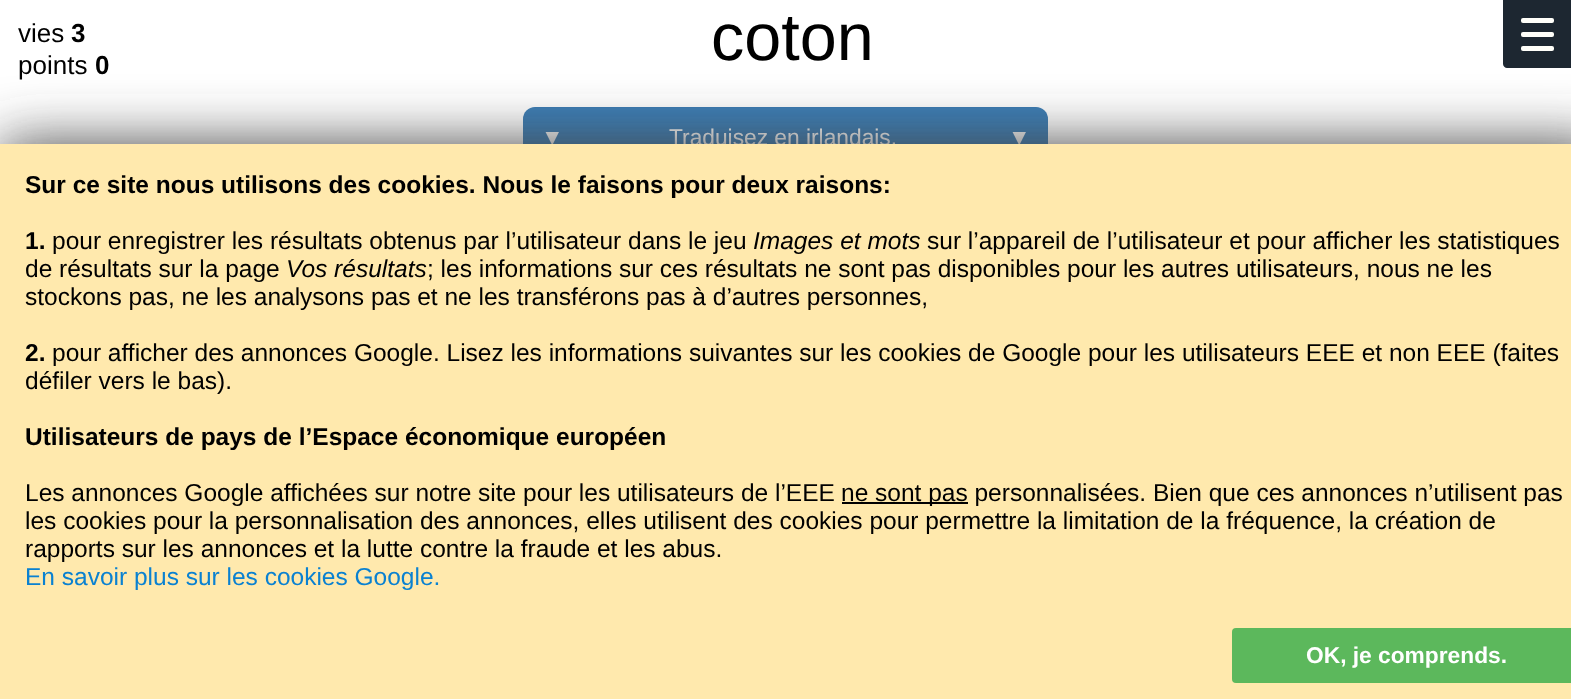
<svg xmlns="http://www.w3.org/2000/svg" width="1571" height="699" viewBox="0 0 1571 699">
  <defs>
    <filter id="blur1" x="-50%" y="-200%" width="200%" height="500%"><feGaussianBlur stdDeviation="29"/></filter>
  </defs>
  <rect width="100%" height="100%" fill="#ffffff"/>
  <text x="18" y="42" font-family="Liberation Sans" font-size="26" fill="#000000">vies</text>
  <text x="71" y="42" font-family="Liberation Sans" font-size="26" font-weight="bold" fill="#000000">3</text>
  <text x="18" y="74" font-family="Liberation Sans" font-size="26" fill="#000000">points</text>
  <text x="95" y="74" font-family="Liberation Sans" font-size="26" font-weight="bold" fill="#000000">0</text>
  <text x="711" y="60" font-family="Liberation Sans" font-size="66.5" fill="#000000">coton</text>
  <path d="M1503 0H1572V68H1507C1505 68 1503 66 1503 64Z" fill="#1d2731"/>
  <rect x="1521" y="18" width="33" height="5" rx="2" fill="#fffffa"/>
  <rect x="1521" y="32" width="33" height="5" rx="2" fill="#fffffa"/>
  <rect x="1521" y="46" width="33" height="5" rx="2" fill="#fffffa"/>
  <rect x="523" y="107" width="525" height="61" rx="12" fill="#3a7cb4"/>
  <text x="541" y="145" font-family="Liberation Sans" font-size="22.75" fill="#ffffff">▼</text>
  <text x="669" y="145" font-family="Liberation Sans" font-size="22.75" fill="#ffffff">Traduisez en irlandais.</text>
  <text x="1008" y="145" font-family="Liberation Sans" font-size="22.75" fill="#ffffff">▼</text>
  <rect x="0" y="144" width="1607" height="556" fill="#444444" filter="url(#blur1)"/>
  <rect x="0" y="144" width="1571" height="555" fill="#ffe9ad"/>
  <text x="25" y="193" font-family="Liberation Sans" font-size="24.5" font-weight="bold" fill="#000000">Sur ce site nous utilisons des cookies. Nous le faisons pour deux raisons:</text>
  <text x="25" y="249" font-family="Liberation Sans" font-size="24.5" font-weight="bold" fill="#000000">1.</text>
  <text x="52" y="249" font-family="Liberation Sans" font-size="24.5" fill="#000000">pour enregistrer les résultats obtenus par l’utilisateur dans le jeu</text>
  <text x="753" y="249" font-family="Liberation Sans" font-size="24.5" font-style="italic" fill="#000000">Images et mots</text>
  <text x="927" y="249" font-family="Liberation Sans" font-size="24.5" fill="#000000">sur l’appareil de l’utilisateur et pour afficher les statistiques</text>
  <text x="25" y="277" font-family="Liberation Sans" font-size="24.5" fill="#000000">de résultats sur la page</text>
  <text x="286" y="277" font-family="Liberation Sans" font-size="24.5" font-style="italic" fill="#000000">Vos résultats</text>
  <text x="427" y="277" font-family="Liberation Sans" font-size="24.5" fill="#000000">; les informations sur ces résultats ne sont pas disponibles pour les autres utilisateurs, nous ne les</text>
  <text x="25" y="305" font-family="Liberation Sans" font-size="24.5" fill="#000000">stockons pas, ne les analysons pas et ne les transférons pas à d’autres personnes,</text>
  <text x="25" y="361" font-family="Liberation Sans" font-size="24.5" font-weight="bold" fill="#000000">2.</text>
  <text x="52" y="361" font-family="Liberation Sans" font-size="24.5" fill="#000000">pour afficher des annonces Google. Lisez les informations suivantes sur les cookies de Google pour les utilisateurs EEE et non EEE (faites</text>
  <text x="25" y="389" font-family="Liberation Sans" font-size="24.5" fill="#000000">défiler vers le bas).</text>
  <text x="25" y="445" font-family="Liberation Sans" font-size="24.5" font-weight="bold" fill="#000000">Utilisateurs de pays de l’Espace économique européen</text>
  <text x="25" y="501" font-family="Liberation Sans" font-size="24.5" fill="#000000">Les annonces Google affichées sur notre site pour les utilisateurs de l’EEE</text>
  <rect x="842" y="502" width="126" height="2" fill="#000000"/>
  <text x="841" y="501" font-family="Liberation Sans" font-size="24.5" fill="#000000">ne sont pas personnalisées. Bien que ces annonces n’utilisent pas</text>
  <text x="25" y="529" font-family="Liberation Sans" font-size="24.5" fill="#000000">les cookies pour la personnalisation des annonces, elles utilisent des cookies pour permettre la limitation de la fréquence, la création de</text>
  <text x="25" y="557" font-family="Liberation Sans" font-size="24.5" fill="#000000">rapports sur les annonces et la lutte contre la fraude et les abus.</text>
  <text x="25" y="585" font-family="Liberation Sans" font-size="24.5" fill="#0a81d1">En savoir plus sur les cookies Google.</text>
  <rect x="1232" y="628" width="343" height="55" rx="4" fill="#5cb85c"/>
  <text x="1306" y="663" font-family="Liberation Sans" font-size="22.75" font-weight="bold" fill="#ffffff">OK, je comprends.</text>
</svg>
